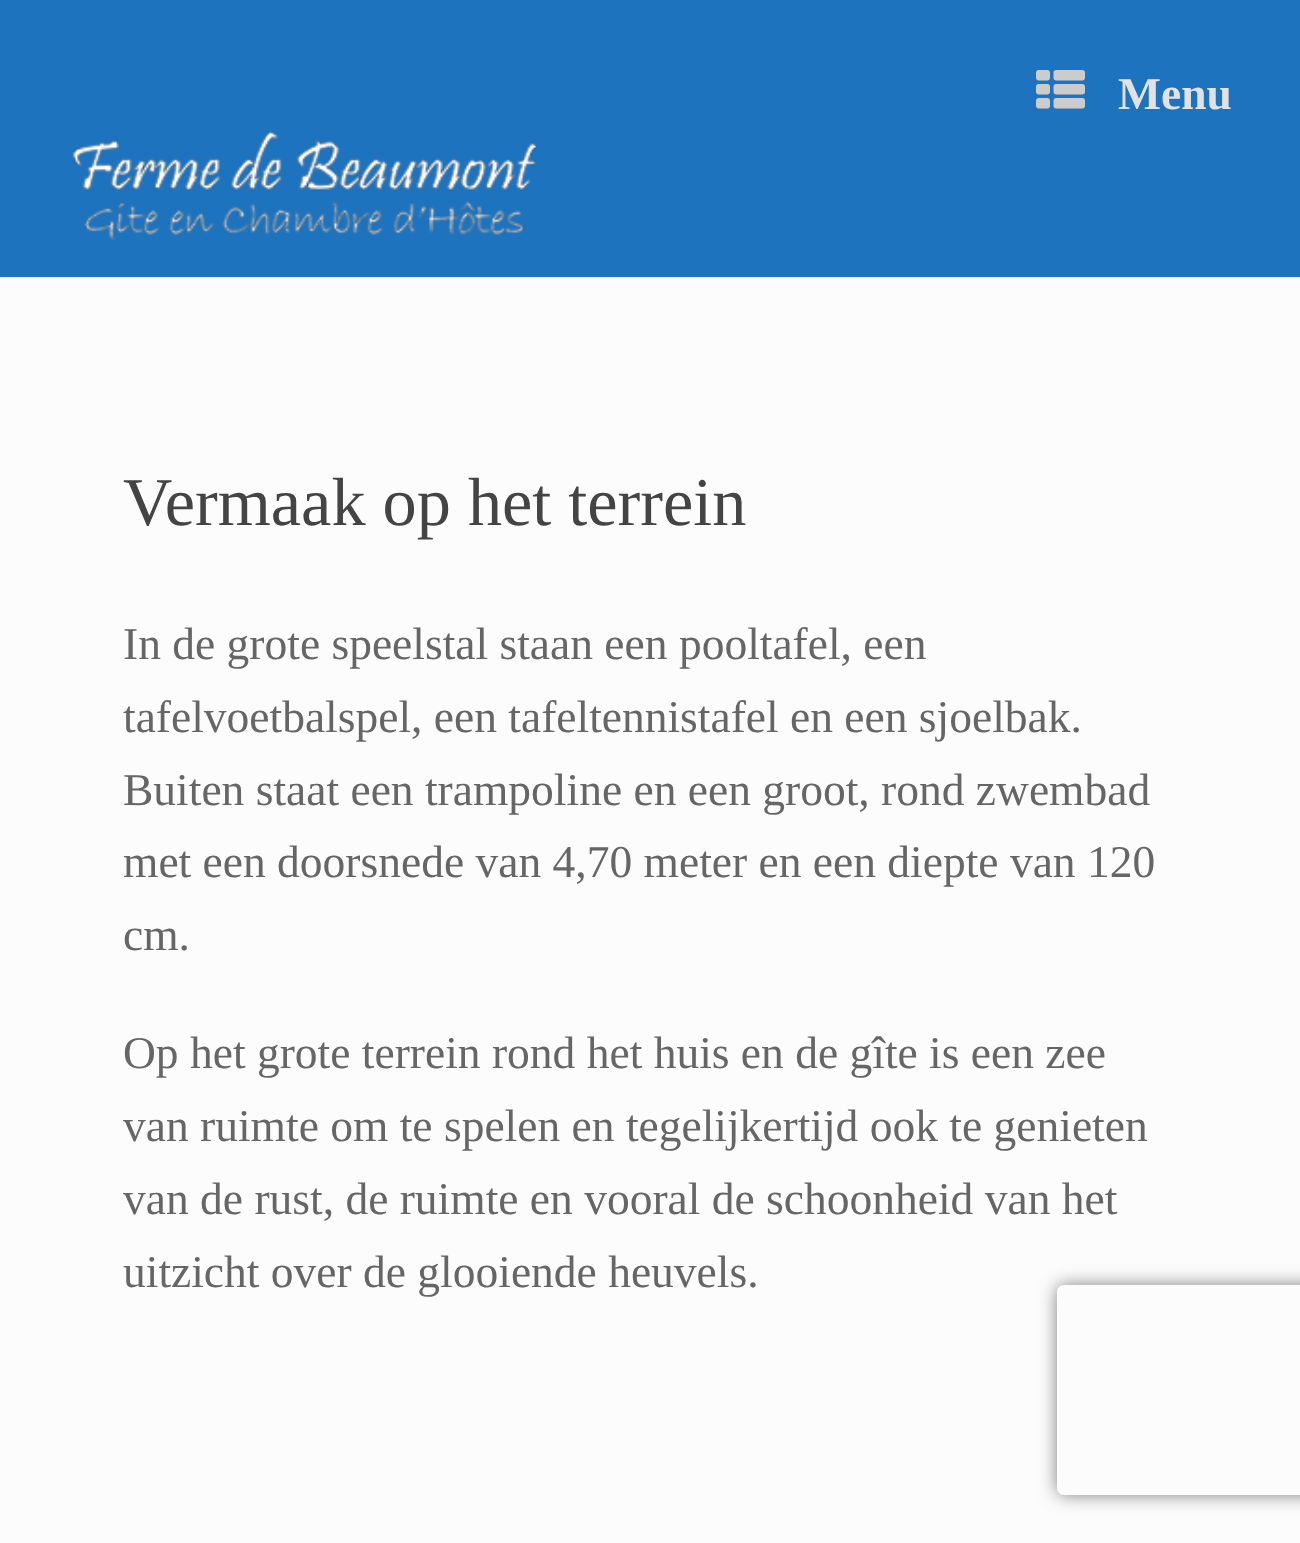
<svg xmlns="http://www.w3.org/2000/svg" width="1300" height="1543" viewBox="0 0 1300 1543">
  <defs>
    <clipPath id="clip1"><path d="M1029 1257H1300V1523H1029ZM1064 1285H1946C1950 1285 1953 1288 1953 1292V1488C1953 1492 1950 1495 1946 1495H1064C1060 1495 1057 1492 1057 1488V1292C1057 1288 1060 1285 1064 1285Z" clip-rule="evenodd"/></clipPath>
    <filter id="blur1" x="-50%" y="-200%" width="200%" height="500%"><feGaussianBlur stdDeviation="9"/></filter>
  </defs>
  <rect width="100%" height="100%" fill="#fcfcfc"/>
  <rect x="0" y="0" width="1300" height="277" fill="#1e73be"/>
  <image x="1036" y="70" width="49" height="39" href="img1.png"/>
  <text x="1118" y="109" font-family="Liberation Serif" font-size="45.5" font-weight="bold" fill="#e2e2e2">Menu</text>
  <image x="72" y="131" width="464" height="111" href="img2.png"/>
  <text x="123" y="525" font-family="Liberation Serif" font-size="68.25" fill="#444444">Vermaak op het terrein</text>
  <text x="123" y="659" font-family="Liberation Serif" font-size="45.5" fill="#666666">In de grote speelstal staan een pooltafel, een</text>
  <text x="123" y="732" font-family="Liberation Serif" font-size="45.5" fill="#666666">tafelvoetbalspel, een tafeltennistafel en een sjoelbak.</text>
  <text x="123" y="805" font-family="Liberation Serif" font-size="45.5" fill="#666666">Buiten staat een trampoline en een groot, rond zwembad</text>
  <text x="123" y="877" font-family="Liberation Serif" font-size="45.5" fill="#666666">met een doorsnede van 4,70 meter en een diepte van 120</text>
  <text x="123" y="950" font-family="Liberation Serif" font-size="45.5" fill="#666666">cm.</text>
  <text x="123" y="1068" font-family="Liberation Serif" font-size="45.5" fill="#666666">Op het grote terrein rond het huis en de gîte is een zee</text>
  <text x="123" y="1141" font-family="Liberation Serif" font-size="45.5" fill="#666666">van ruimte om te spelen en tegelijkertijd ook te genieten</text>
  <text x="123" y="1214" font-family="Liberation Serif" font-size="45.5" fill="#666666">van de rust, de ruimte en vooral de schoonheid van het</text>
  <text x="123" y="1287" font-family="Liberation Serif" font-size="45.5" fill="#666666">uitzicht over de glooiende heuvels.</text>
  <g clip-path="url(#clip1)">
    <rect x="1057" y="1285" width="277" height="210" rx="7" fill="#808080" filter="url(#blur1)"/>
  </g>
</svg>
